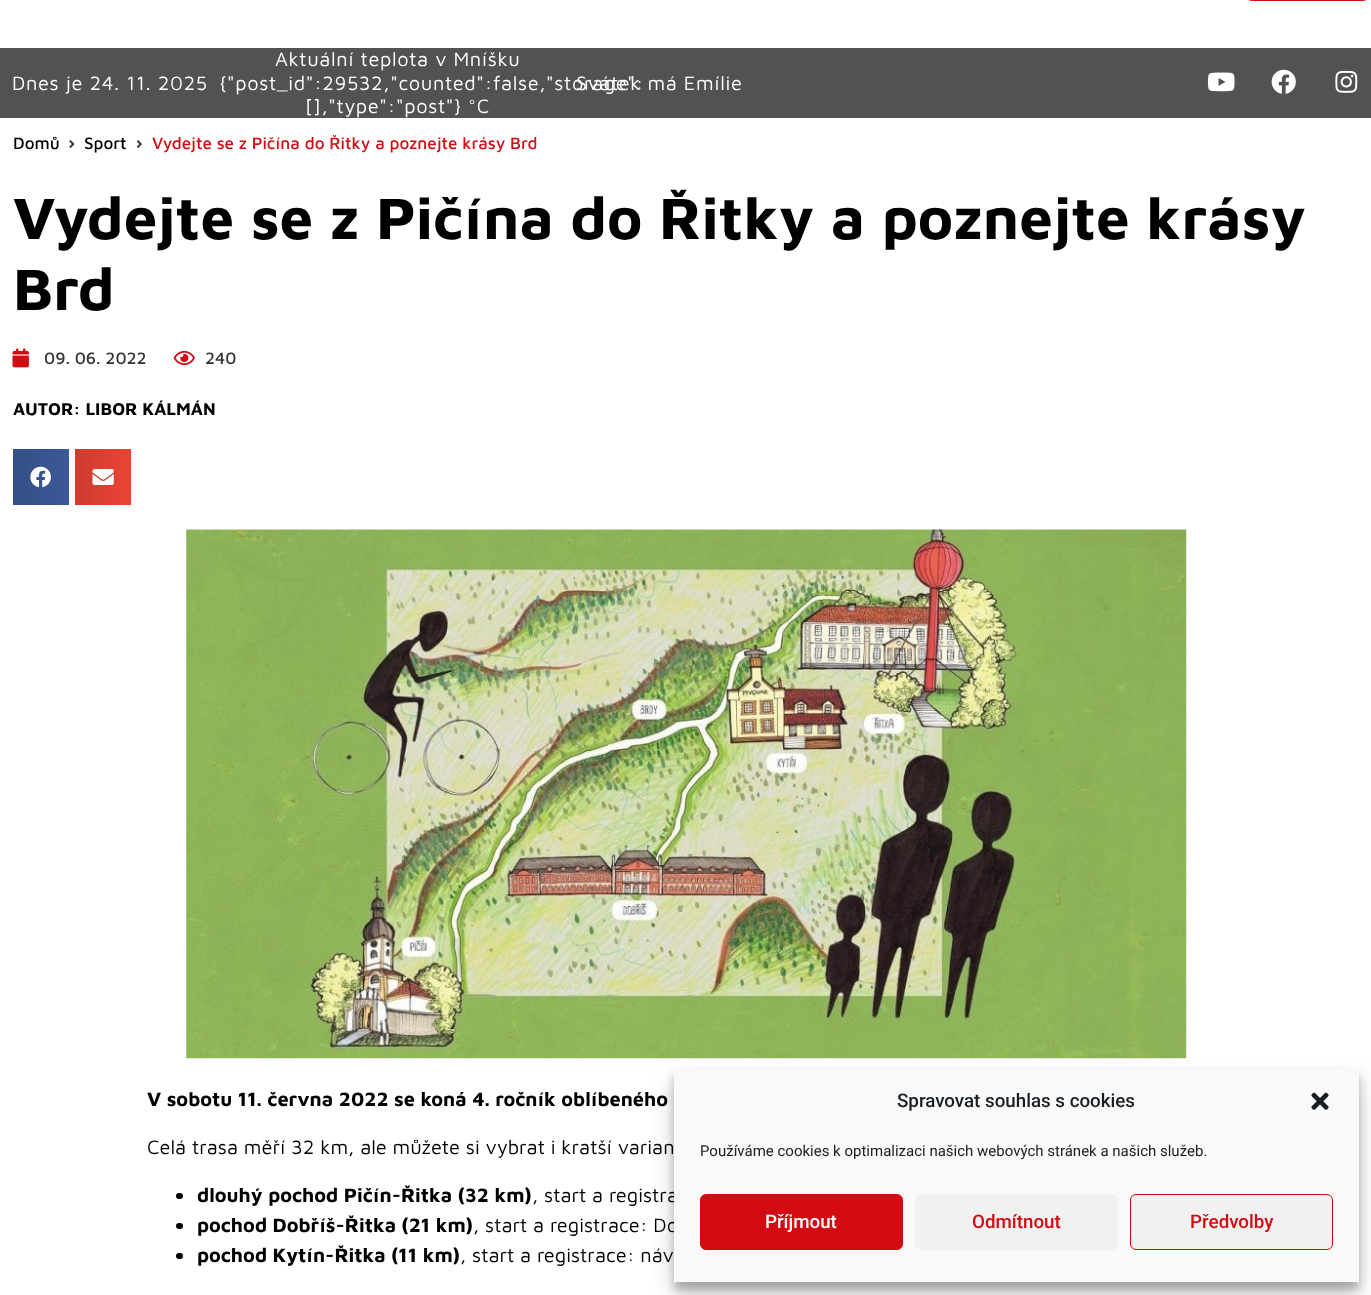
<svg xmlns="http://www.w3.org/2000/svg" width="1371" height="1295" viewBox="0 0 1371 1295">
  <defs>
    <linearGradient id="g1" gradientUnits="userSpaceOnUse" x1="13" y1="477" x2="69" y2="477"><stop offset="0" stop-color="#344e86"/><stop offset="1" stop-color="#3b5998"/></linearGradient>
    <linearGradient id="g2" gradientUnits="userSpaceOnUse" x1="75" y1="477" x2="131" y2="477"><stop offset="0" stop-color="#ce3b2f"/><stop offset="1" stop-color="#ea4335"/></linearGradient>
    <filter id="blur1" x="-50%" y="-200%" width="200%" height="500%"><feGaussianBlur stdDeviation="4"/></filter>
    <filter id="blur2" x="-50%" y="-200%" width="200%" height="500%"><feGaussianBlur stdDeviation="12.5"/></filter>
  </defs>
  <rect width="100%" height="100%" fill="#ffffff"/>
  <rect x="1246" y="-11" width="123" height="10" rx="7" fill="none" stroke="#d20a11" stroke-width="4"/>
  <rect x="0" y="48" width="1371" height="70" fill="#525252"/>
  <text x="12" y="90" font-family="Maven Pro" font-size="20" letter-spacing="0.6" fill="#ffffff">Dnes je 24. 11. 2025</text>
  <text x="275" y="66" font-family="Maven Pro" font-size="20" letter-spacing="0.6" fill="#ffffff">Aktuální teplota v Mníšku</text>
  <text x="219" y="90" font-family="Maven Pro" font-size="20" letter-spacing="0.6" fill="#ffffff">{"post_id":29532,"counted":false,"storage":</text>
  <text x="305" y="113" font-family="Maven Pro" font-size="20" letter-spacing="0.6" fill="#ffffff">[],"type":"post"} °C</text>
  <text x="576" y="90" font-family="Maven Pro" font-size="20" letter-spacing="0.6" fill="#ffffff">Svátek má Emílie</text>
  <image x="1207" y="72" width="28" height="20" href="img1.png"/>
  <image x="1271" y="69" width="25" height="25" href="img2.png"/>
  <image x="1335" y="70" width="23" height="23" href="img3.png"/>
  <text x="13" y="149" font-family="Maven Pro" font-size="17" font-weight="500" fill="#000000">Domů</text>
  <image x="69" y="140" width="6" height="8" href="img4.png"/>
  <text x="84" y="149" font-family="Maven Pro" font-size="17" font-weight="500" fill="#000000">Sport</text>
  <image x="136" y="140" width="6" height="8" href="img5.png"/>
  <text x="152" y="149" font-family="Maven Pro" font-size="17" font-weight="500" fill="#d20a11">Vydejte se z Pičína do Řitky a poznejte krásy Brd</text>
  <text x="13" y="239" font-family="Maven Pro" font-size="60" font-weight="bold" fill="#000000">Vydejte se z Pičína do Řitky a poznejte krásy</text>
  <text x="13" y="310" font-family="Maven Pro" font-size="60" font-weight="bold" fill="#000000">Brd</text>
  <image x="12" y="348" width="17" height="20" href="img6.png"/>
  <text x="44" y="364" font-family="Maven Pro" font-size="17" font-weight="500" fill="#333333">09. 06. 2022</text>
  <image x="173" y="350" width="22" height="15" href="img7.png"/>
  <text x="205" y="364" font-family="Maven Pro" font-size="17" font-weight="500" fill="#333333">240</text>
  <text x="13" y="415" font-family="Maven Pro" font-size="17.5" font-weight="bold" fill="#000000">AUTOR: LIBOR KÁLMÁN</text>
  <rect x="13" y="449" width="56" height="56" fill="url(#g1)"/>
  <image x="30" y="466" width="21" height="22" href="img8.png"/>
  <rect x="75" y="449" width="56" height="56" fill="url(#g2)"/>
  <image x="92" y="469" width="22" height="16" href="img9.png"/>
  <image x="186" y="529" width="1001" height="530" href="img10.png"/>
  <text x="147" y="1106" font-family="Maven Pro" font-size="20" font-weight="bold" fill="#000000">V sobotu 11. června 2022 se koná 4. ročník oblíbeného</text>
  <text x="147" y="1154" font-family="Maven Pro" font-size="20" fill="#000000">Celá trasa měří 32 km, ale můžete si vybrat i kratší varian</text>
  <rect x="176" y="1193" width="7" height="6" rx="3" fill="#000000"/>
  <text x="197" y="1202" font-family="Maven Pro" font-size="20" font-weight="bold" fill="#000000">dlouhý pochod Pičín-Řitka (32 km)</text>
  <text x="532" y="1202" font-family="Maven Pro" font-size="20" fill="#000000">, start a registra</text>
  <rect x="176" y="1223" width="7" height="6" rx="3" fill="#000000"/>
  <text x="197" y="1232" font-family="Maven Pro" font-size="20" font-weight="bold" fill="#000000">pochod Dobříš-Řitka (21 km)</text>
  <text x="473" y="1232" font-family="Maven Pro" font-size="20" fill="#000000">, start a registrace: Do</text>
  <rect x="176" y="1253" width="7" height="6" rx="3" fill="#000000"/>
  <text x="197" y="1262" font-family="Maven Pro" font-size="20" font-weight="bold" fill="#000000">pochod Kytín-Řitka (11 km)</text>
  <text x="460" y="1262" font-family="Maven Pro" font-size="20" fill="#000000">, start a registrace: náv</text>
  <rect x="674" y="1076" width="685" height="214" fill="#000000" fill-opacity="0.23" filter="url(#blur1)"/>
  <rect x="674" y="1081" width="685" height="214" fill="#000000" fill-opacity="0.19" filter="url(#blur2)"/>
  <rect x="675" y="1069" width="683" height="212" fill="#f9f9f9"/>
  <rect x="1358" y="1069" width="1" height="214" fill="#f9f9f9"/>
  <rect x="674" y="1281" width="685" height="1" fill="#f9f9f9"/>
  <rect x="674" y="1069" width="1" height="214" fill="#f9f9f9"/>
  <text x="897" y="1107" font-family="Roboto" font-size="18.75" font-weight="500" fill="#191e23">Spravovat souhlas s cookies</text>
  <image x="1311" y="1092" width="18" height="18" href="img11.png"/>
  <text x="700" y="1156" font-family="Roboto" font-size="15" fill="#191e23">Používáme cookies k optimalizaci našich webových stránek a našich služeb.</text>
  <rect x="700.5" y="1194.5" width="202" height="55" rx="5.5" fill="#d20a11" stroke="#d20a11"/>
  <text x="765" y="1228" font-family="Roboto" font-size="18.75" font-weight="500" fill="#ffffff">Příjmout</text>
  <rect x="915" y="1194" width="203" height="56" rx="6" fill="#f1f1f1"/>
  <text x="972" y="1228" font-family="Roboto" font-size="18.75" font-weight="500" fill="#d20a11">Odmítnout</text>
  <rect x="1130.5" y="1194.5" width="202" height="55" rx="5.5" fill="#f1f1f1" stroke="#d20a11"/>
  <text x="1190" y="1228" font-family="Roboto" font-size="18.75" font-weight="500" fill="#d20a11">Předvolby</text>
</svg>
